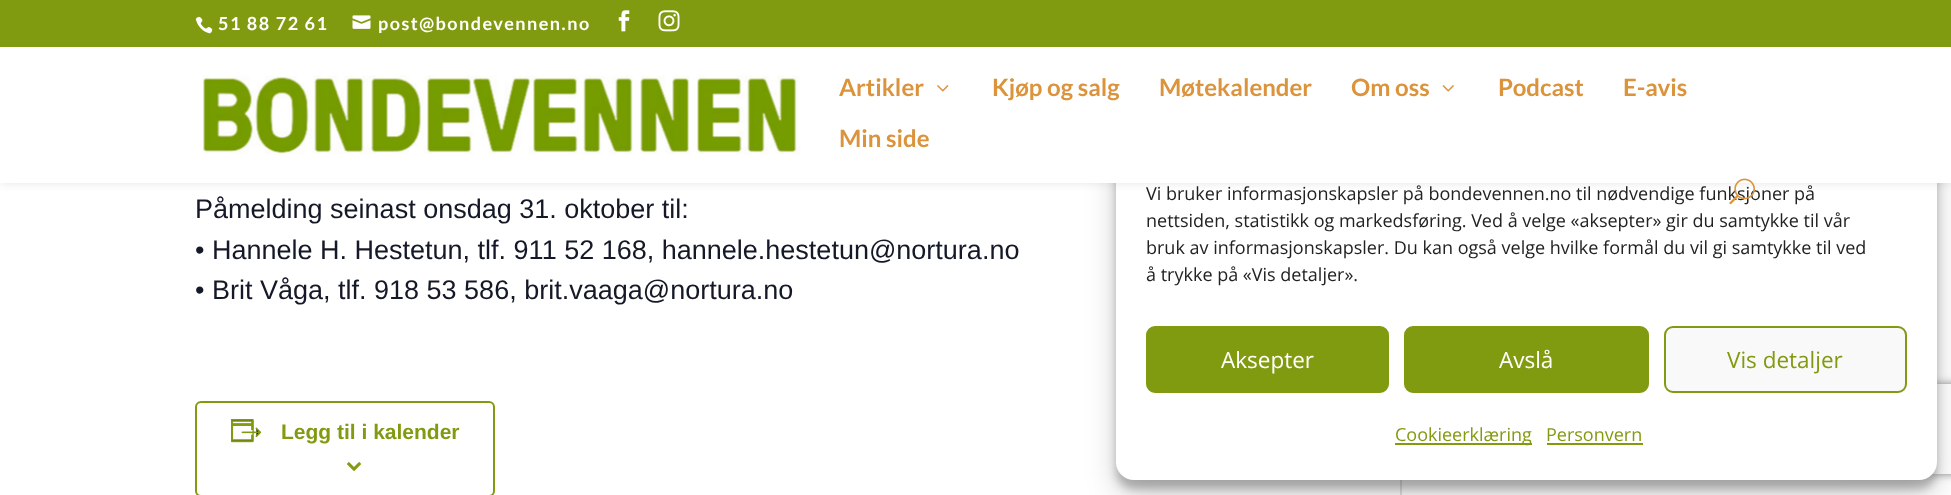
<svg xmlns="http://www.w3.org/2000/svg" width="1951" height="495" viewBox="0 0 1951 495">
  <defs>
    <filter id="blur1" x="-50%" y="-200%" width="200%" height="500%"><feGaussianBlur stdDeviation="4.5"/></filter>
    <filter id="blur2" x="-50%" y="-200%" width="200%" height="500%"><feGaussianBlur stdDeviation="15"/></filter>
    <clipPath id="clip1"><path d="M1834 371H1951V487H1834ZM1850 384H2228C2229.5 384 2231 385.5 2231 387V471C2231 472.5 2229.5 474 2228 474H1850C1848.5 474 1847 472.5 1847 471V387C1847 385.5 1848.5 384 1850 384Z" clip-rule="evenodd"/></clipPath>
    <filter id="blur3" x="-50%" y="-200%" width="200%" height="500%"><feGaussianBlur stdDeviation="4"/></filter>
    <filter id="blur4" x="-50%" y="-200%" width="200%" height="500%"><feGaussianBlur stdDeviation="5"/></filter>
  </defs>
  <rect width="100%" height="100%" fill="#ffffff"/>
  <rect x="1400" y="480" width="2" height="15" fill="#e2e2e2"/>
  <rect x="1116" y="92" width="821" height="397" rx="18" fill="#000000" fill-opacity="0.23" filter="url(#blur1)"/>
  <rect x="1116" y="98" width="821" height="397" rx="18" fill="#000000" fill-opacity="0.19" filter="url(#blur2)"/>
  <g clip-path="url(#clip1)">
    <rect x="1847" y="384" width="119" height="90" rx="3" fill="#808080" filter="url(#blur3)"/>
  </g>
  <rect x="1116" y="83" width="821" height="397" rx="18" fill="#ffffff"/>
  <rect x="0" y="47" width="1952" height="136" fill="#000000" fill-opacity="0.1" filter="url(#blur4)"/>
  <rect x="0" y="0" width="1951" height="47" fill="#819b10"/>
  <image x="195" y="16" width="18" height="18" href="img1.png"/>
  <text x="218" y="30" font-family="Lato" font-size="18" font-weight="bold" letter-spacing="1.5" fill="#ffffff">51 88 72 61</text>
  <image x="352" y="15" width="19" height="14" href="img2.png"/>
  <text x="378" y="30" font-family="Lato" font-size="18" font-weight="bold" letter-spacing="1.5" fill="#ffffff">post@bondevennen.no</text>
  <image x="618" y="10" width="12" height="22" href="img3.png"/>
  <image x="658" y="10" width="22" height="22" href="img4.png"/>
  <rect x="0" y="47" width="1951" height="136" fill="#ffffff"/>
  <image x="202" y="75" width="599" height="80" href="img5.png"/>
  <text x="839" y="96" font-family="Lato" font-size="24" font-weight="bold" fill="#db933c">Artikler</text>
  <image x="937" y="85" width="12" height="7" href="img6.png"/>
  <text x="992" y="96" font-family="Lato" font-size="24" font-weight="bold" fill="#db933c">Kjøp og salg</text>
  <text x="1159" y="96" font-family="Lato" font-size="24" font-weight="bold" fill="#db933c">Møtekalender</text>
  <text x="1351" y="96" font-family="Lato" font-size="24" font-weight="bold" fill="#db933c">Om oss</text>
  <image x="1442" y="85" width="12" height="7" href="img7.png"/>
  <text x="1498" y="96" font-family="Lato" font-size="24" font-weight="bold" fill="#db933c">Podcast</text>
  <text x="1623" y="96" font-family="Lato" font-size="24" font-weight="bold" fill="#db933c">E-avis</text>
  <text x="839" y="147" font-family="Lato" font-size="24" font-weight="bold" fill="#db933c">Min side</text>
  <text x="1146" y="200" font-family="Open Sans" font-size="18" fill="#222222">Vi bruker informasjonskapsler på bondevennen.no til nødvendige funksjoner på</text>
  <image x="1729" y="178" width="26" height="27" href="img8.png"/>
  <text x="195" y="218" font-family="Liberation Sans" font-size="27" fill="#141827">Påmelding seinast onsdag 31. oktober til:</text>
  <text x="195" y="259" font-family="Liberation Sans" font-size="27" fill="#141827">• Hannele H. Hestetun, tlf. 911 52 168, hannele.hestetun@nortura.no</text>
  <text x="195" y="299" font-family="Liberation Sans" font-size="27" fill="#141827">• Brit Våga, tlf. 918 53 586, brit.vaaga@nortura.no</text>
  <rect x="196" y="402" width="298" height="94" rx="5" fill="none" stroke="#819b10" stroke-width="2"/>
  <image x="231" y="419" width="31" height="24" href="img9.png"/>
  <text x="281" y="439" font-family="Liberation Sans" font-size="21" font-weight="bold" fill="#819b10">Legg til i kalender</text>
  <image x="347" y="462" width="15" height="9" href="img10.png"/>
  <text x="1146" y="227" font-family="Open Sans" font-size="18" fill="#222222">nettsiden, statistikk og markedsføring. Ved å velge «aksepter» gir du samtykke til vår</text>
  <text x="1146" y="254" font-family="Open Sans" font-size="18" fill="#222222">bruk av informasjonskapsler. Du kan også velge hvilke formål du vil gi samtykke til ved</text>
  <text x="1146" y="281" font-family="Open Sans" font-size="18" fill="#222222">å trykke på «Vis detaljer».</text>
  <rect x="1147" y="327" width="241" height="65" rx="8" fill="#819b10" stroke="#819b10" stroke-width="2"/>
  <text x="1221" y="368" font-family="Open Sans" font-size="22.5" fill="#ffffff">Aksepter</text>
  <rect x="1405" y="327" width="243" height="65" rx="8" fill="#819b10" stroke="#819b10" stroke-width="2"/>
  <text x="1499" y="368" font-family="Open Sans" font-size="22.5" fill="#ffffff">Avslå</text>
  <rect x="1665" y="327" width="241" height="65" rx="8" fill="#f9f9f9" stroke="#819b10" stroke-width="2"/>
  <text x="1727" y="368" font-family="Open Sans" font-size="22.5" fill="#819b10">Vis detaljer</text>
  <rect x="1395" y="443" width="137" height="2" fill="#819b10"/>
  <text x="1395" y="441" font-family="Open Sans" font-size="18" fill="#819b10">Cookieerklæring</text>
  <text x="1546" y="441" font-family="Open Sans" font-size="18" fill="#819b10">Personvern</text>
  <rect x="1547" y="443" width="96" height="2" fill="#819b10"/>
</svg>
